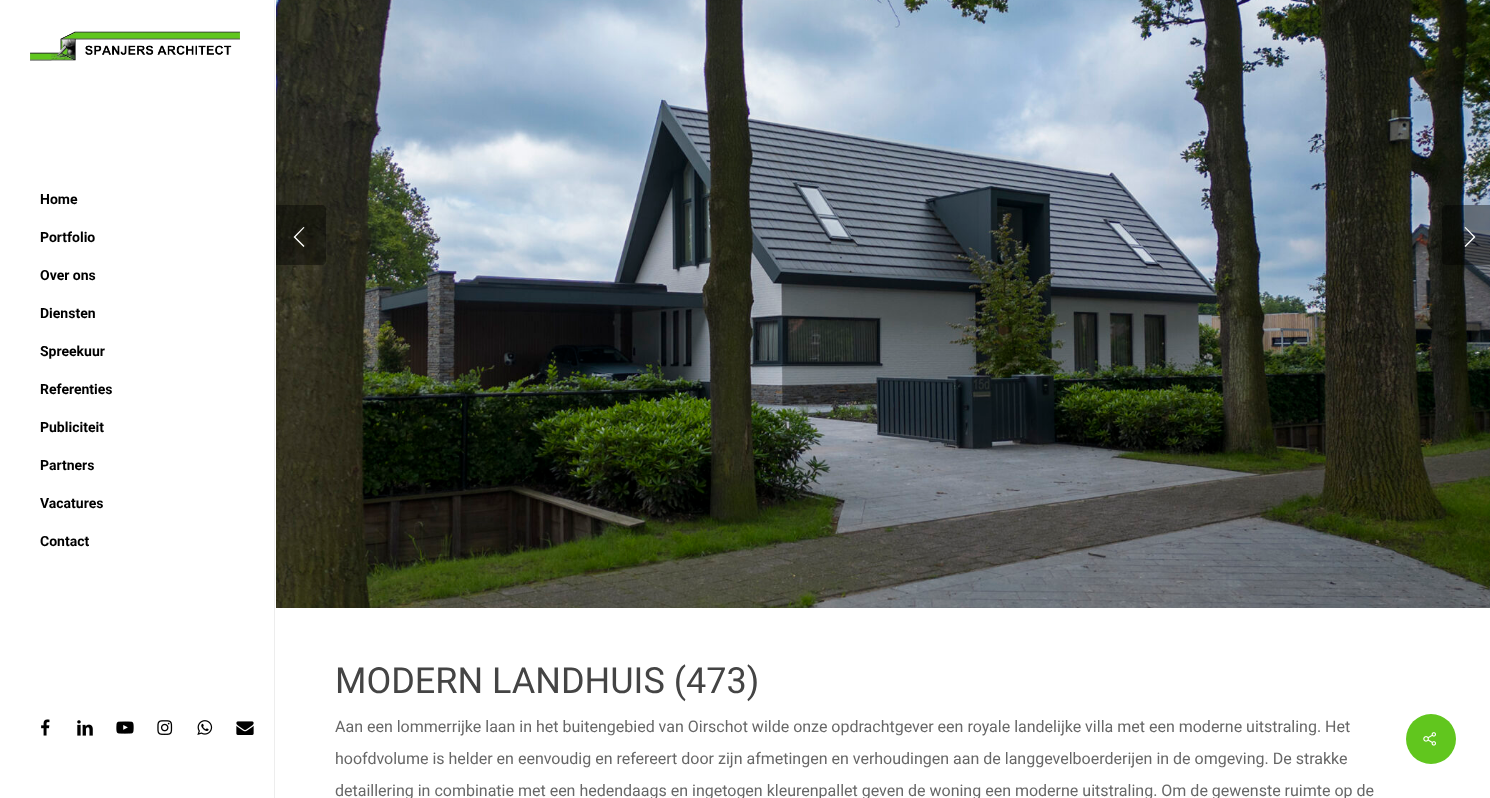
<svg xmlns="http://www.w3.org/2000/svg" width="1490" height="798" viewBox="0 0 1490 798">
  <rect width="100%" height="100%" fill="#ffffff"/>
  <rect x="274" y="0" width="1" height="798" fill="#ededed"/>
  <image x="30" y="31" width="210" height="30" href="img1.png"/>
  <text x="40" y="204" font-family="Roboto" font-size="14" font-weight="bold" fill="#000000">Home</text>
  <text x="40" y="242" font-family="Roboto" font-size="14" font-weight="bold" fill="#000000">Portfolio</text>
  <text x="40" y="280" font-family="Roboto" font-size="14" font-weight="bold" fill="#000000">Over ons</text>
  <text x="40" y="318" font-family="Roboto" font-size="14" font-weight="bold" fill="#000000">Diensten</text>
  <text x="40" y="356" font-family="Roboto" font-size="14" font-weight="bold" fill="#000000">Spreekuur</text>
  <text x="40" y="394" font-family="Roboto" font-size="14" font-weight="bold" fill="#000000">Referenties</text>
  <text x="40" y="432" font-family="Roboto" font-size="14" font-weight="bold" fill="#000000">Publiciteit</text>
  <text x="40" y="470" font-family="Roboto" font-size="14" font-weight="bold" fill="#000000">Partners</text>
  <text x="40" y="508" font-family="Roboto" font-size="14" font-weight="bold" fill="#000000">Vacatures</text>
  <text x="40" y="546" font-family="Roboto" font-size="14" font-weight="bold" fill="#000000">Contact</text>
  <image x="41" y="719" width="9" height="17" href="img2.png"/>
  <image x="77" y="720" width="16" height="16" href="img3.png"/>
  <image x="116" y="721" width="18" height="13" href="img4.png"/>
  <image x="157" y="720" width="16" height="15" href="img5.png"/>
  <image x="197" y="720" width="16" height="15" href="img6.png"/>
  <image x="236" y="721" width="18" height="14" href="img7.png"/>
  <image x="276" y="0" width="1214" height="608" href="img8.png"/>
  <path d="M276 205H322C324 205 326 207 326 209V261C326 263 324 265 322 265H276Z" fill="#000000" fill-opacity="0.4"/>
  <path d="M304.5 246L303.5 247L293.5 237L303.5 227L304.5 227.5L295.5 237Z" fill="#ffffff"/>
  <path d="M1446 205H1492V265H1446C1444 265 1442 263 1442 261V209C1442 207 1444 205 1446 205Z" fill="#000000" fill-opacity="0.4"/>
  <path d="M1464.5 227.5L1465.5 227L1475.5 237L1465.5 247L1464.5 246L1473.5 237Z" fill="#ffffff"/>
  <text x="335" y="693" font-family="Roboto" font-size="36" fill="#444444">MODERN LANDHUIS (473)</text>
  <text x="335" y="732" font-family="Roboto" font-size="16" fill="#676767">Aan een lommerrijke laan in het buitengebied van Oirschot wilde onze opdrachtgever een royale landelijke villa met een moderne uitstraling. Het</text>
  <text x="335" y="764" font-family="Roboto" font-size="16" fill="#676767">hoofdvolume is helder en eenvoudig en refereert door zijn afmetingen en verhoudingen aan de langgevelboerderijen in de omgeving. De strakke</text>
  <text x="335" y="796" font-family="Roboto" font-size="16" fill="#676767">detaillering in combinatie met een hedendaags en ingetogen kleurenpallet geven de woning een moderne uitstraling. Om de gewenste ruimte op de</text>
  <circle cx="1431" cy="739" r="25" fill="#61c61e"/>
  <image x="1423" y="732" width="13" height="14" href="img9.png"/>
</svg>
